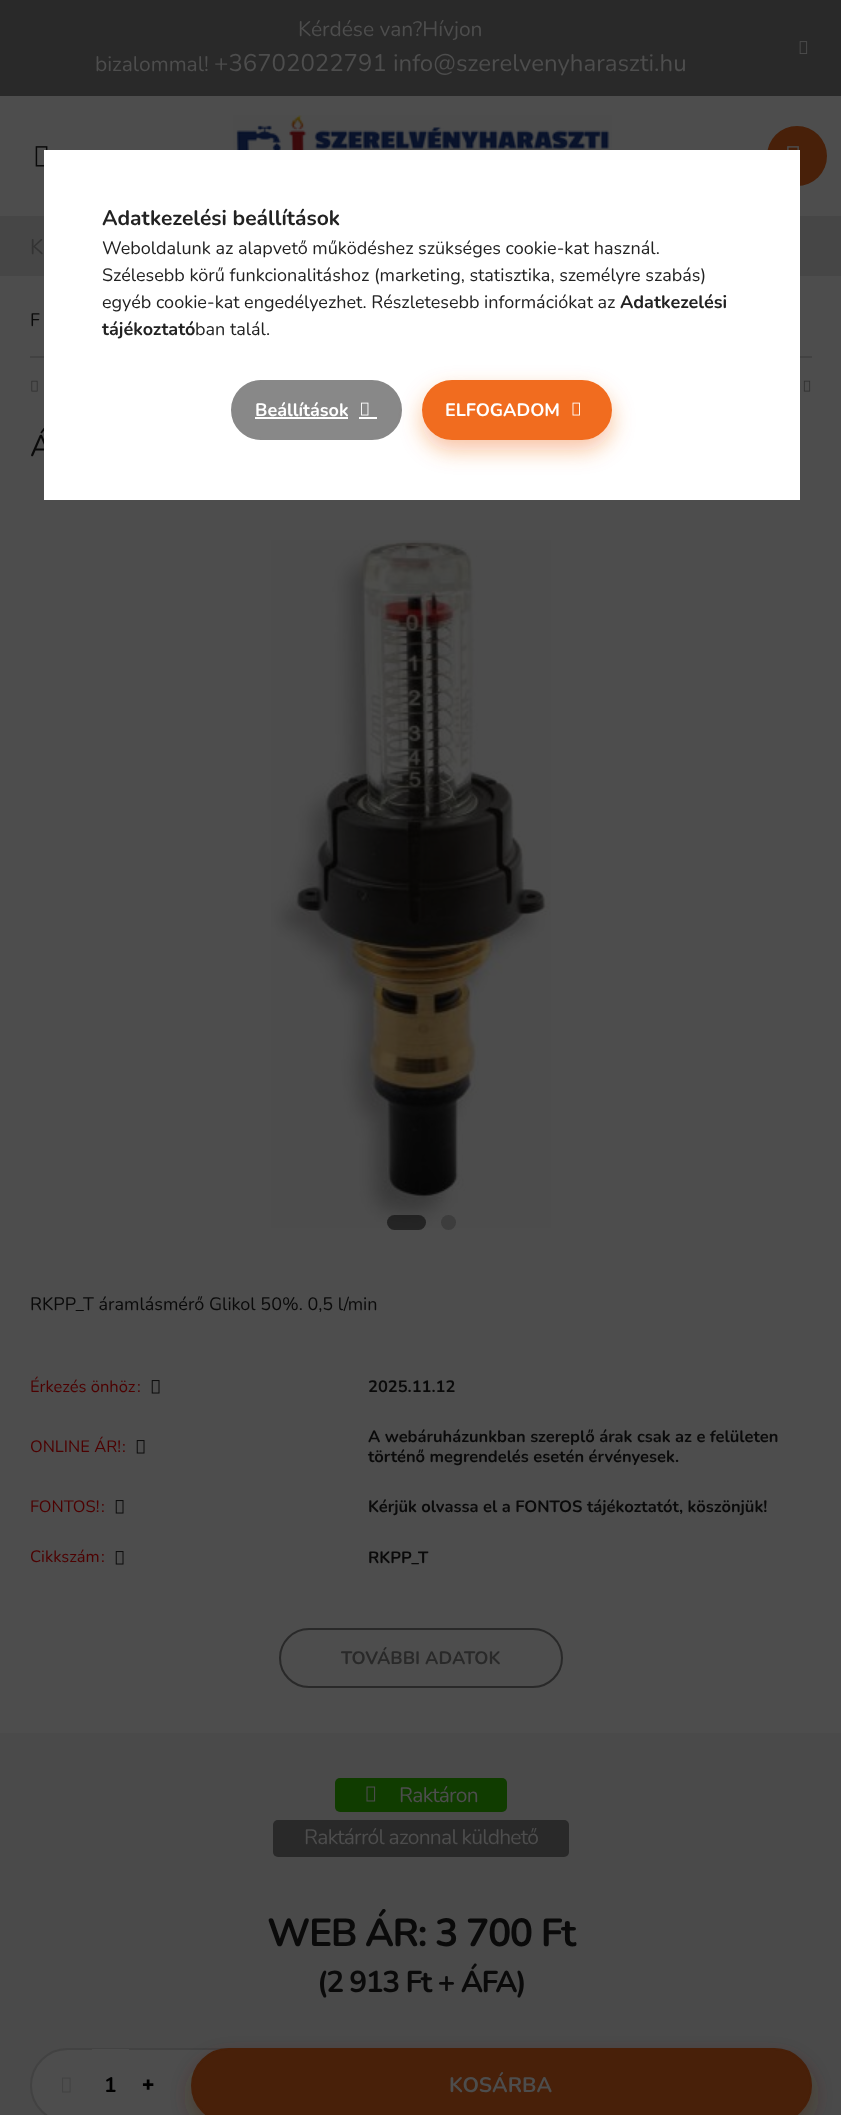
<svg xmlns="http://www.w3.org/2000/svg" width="841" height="2115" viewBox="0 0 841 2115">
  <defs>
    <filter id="blur1" x="-50%" y="-200%" width="200%" height="500%"><feGaussianBlur stdDeviation="11"/></filter>
    <clipPath id="clip1"><path d="M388 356H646V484H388ZM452 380H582C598.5 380 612 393.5 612 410C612 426.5 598.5 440 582 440H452C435.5 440 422 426.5 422 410C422 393.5 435.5 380 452 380Z" clip-rule="evenodd"/></clipPath>
  </defs>
  <rect width="100%" height="100%" fill="#4d4d4d"/>
  <rect x="0" y="0" width="841" height="96" fill="#292929"/>
  <text x="298" y="36" font-family="Nunito" font-size="21" fill="#4d4d4d">Kérdése van?Hívjon</text>
  <text x="95" y="71" font-family="Nunito" font-size="21" fill="#4d4d4d">bizalommal!</text>
  <text x="214" y="71" font-family="Nunito" font-size="24" fill="#4d4d4d">+36702022791</text>
  <text x="393" y="71" font-family="Nunito" font-size="24" fill="#4d4d4d">info@szerelvenyharaszti.hu</text>
  <image x="799" y="41" width="9" height="13" href="img1.png"/>
  <image x="233" y="115" width="379" height="35" href="img2.png"/>
  <image x="35" y="146" width="13" height="21" href="img3.png"/>
  <circle cx="797" cy="156" r="30" fill="#482009"/>
  <image x="787" y="146" width="12" height="4" href="img4.png"/>
  <rect x="0" y="216" width="841" height="60" fill="#464646"/>
  <text x="30" y="254" font-family="Nunito" font-size="21" fill="#333333">K</text>
  <text x="30" y="326" font-family="Nunito" font-size="18" fill="#0a0a0a">F</text>
  <rect x="30" y="356" width="782" height="2" fill="#424242"/>
  <image x="31" y="380" width="7" height="12" href="img5.png"/>
  <image x="803" y="380" width="8" height="12" href="img6.png"/>
  <text x="30" y="456" font-family="Nunito" font-size="30" fill="#0a0a0a">Á</text>
  <image x="271" y="540" width="280" height="688" href="img7.png"/>
  <rect x="387" y="1215" width="39" height="15" rx="7.5" fill="#0f0f0f" fill-opacity="0.65"/>
  <circle cx="448.5" cy="1222.5" r="7.5" fill="#0f0f0f" fill-opacity="0.25"/>
  <text x="30" y="1310" font-family="Nunito" font-size="18" fill="#0a0a0a">RKPP_T áramlásmérő Glikol 50%. 0,5 l/min</text>
  <text x="30" y="1392" font-family="Nunito" font-size="16.5" fill="#4d0000">Érkezés önhöz</text>
  <text x="137" y="1392" font-family="Nunito" font-size="16.5" fill="#4d0000">:</text>
  <image x="151" y="1380" width="9" height="14" href="img8.png"/>
  <text x="368" y="1392" font-family="Nunito" font-size="16.5" font-weight="bold" fill="#0a0a0a">2025.11.12</text>
  <text x="30" y="1452" font-family="Nunito" font-size="16.5" fill="#4d0000">ONLINE ÁR!</text>
  <text x="122" y="1452" font-family="Nunito" font-size="16.5" fill="#4d0000">:</text>
  <image x="136" y="1440" width="9" height="14" href="img8.png"/>
  <text x="368" y="1442" font-family="Nunito" font-size="16.5" font-weight="bold" fill="#0a0a0a">A webáruházunkban szereplő árak csak az e felületen</text>
  <text x="368" y="1462" font-family="Nunito" font-size="16.5" font-weight="bold" fill="#0a0a0a">történő megrendelés esetén érvényesek.</text>
  <text x="30" y="1512" font-family="Nunito" font-size="16.5" fill="#4d0000">FONTOS!</text>
  <text x="101" y="1512" font-family="Nunito" font-size="16.5" fill="#4d0000">:</text>
  <image x="115" y="1500" width="9" height="14" href="img8.png"/>
  <text x="368" y="1512" font-family="Nunito" font-size="16.5" font-weight="bold" fill="#0a0a0a">Kérjük olvassa el a FONTOS tájékoztatót, köszönjük!</text>
  <text x="30" y="1562" font-family="Nunito" font-size="16.5" fill="#4d0000">Cikkszám</text>
  <text x="101" y="1562" font-family="Nunito" font-size="16.5" fill="#4d0000">:</text>
  <image x="115" y="1551" width="9" height="14" href="img8.png"/>
  <text x="368" y="1563" font-family="Nunito" font-size="16.5" font-weight="bold" fill="#0a0a0a">RKPP_T</text>
  <rect x="280" y="1629" width="282" height="58" rx="29" fill="none" stroke="#292929" stroke-width="2"/>
  <text x="341" y="1664" font-family="Nunito" font-size="18" font-weight="bold" fill="#292929">TOVÁBBI ADATOK</text>
  <rect x="0" y="1733" width="841" height="382" fill="#4a4a4a"/>
  <rect x="335" y="1778" width="172" height="34" rx="5" fill="#103c00"/>
  <image x="366" y="1786" width="10" height="16" href="img9.png"/>
  <text x="399" y="1802" font-family="Nunito" font-size="21" letter-spacing="-0.75" fill="#4d4d4d">Raktáron</text>
  <rect x="273" y="1820" width="296" height="37" rx="5" fill="#292929"/>
  <text x="304" y="1844" font-family="Nunito" font-size="21" letter-spacing="-0.75" fill="#4d4d4d">Raktárról azonnal küldhető</text>
  <text x="267" y="1946" font-family="Nunito" font-size="39" font-weight="bold" letter-spacing="-1.5" fill="#0a0a0a">WEB ÁR: 3 700 Ft</text>
  <text x="317" y="1992" font-family="Nunito" font-size="30" font-weight="bold" letter-spacing="-1.5" fill="#0a0a0a">(2 913 Ft + ÁFA)</text>
  <path d="M67.5 2049H235V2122H67.5C47.5 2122 31 2105.5 31 2085.5C31 2065.5 47.5 2049 67.5 2049Z" fill="#4d4d4d" stroke="#424242" stroke-width="2"/>
  <image x="62" y="2077" width="9" height="16" href="img10.png"/>
  <rect x="92" y="2049" width="37" height="1" fill="#4d4d4d"/>
  <text x="104" y="2092" font-family="Nunito" font-size="21" font-weight="bold" fill="#000000">1</text>
  <text x="142" y="2092" font-family="Noto Sans" font-size="21" font-weight="900" fill="#000000">+</text>
  <rect x="191" y="2058" width="621" height="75" rx="37.5" fill="#482009" fill-opacity="0.4" filter="url(#blur1)"/>
  <rect x="192" y="2049" width="619" height="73" rx="36.5" fill="#482009" stroke="#482009" stroke-width="2"/>
  <text x="449" y="2092" font-family="Nunito" font-size="21" font-weight="bold" fill="#4d4d4d">KOSÁRBA</text>
  <rect x="44" y="150" width="756" height="350" fill="#ffffff"/>
  <text x="102" y="225" font-family="Nunito" font-size="21" font-weight="bold" fill="#222222">Adatkezelési beállítások</text>
  <text x="102" y="254" font-family="Nunito" font-size="18" fill="#222222">Weboldalunk az alapvető működéshez szükséges cookie-kat használ.</text>
  <text x="102" y="281" font-family="Nunito" font-size="18" fill="#222222">Szélesebb körű funkcionalitáshoz (marketing, statisztika, személyre szabás)</text>
  <text x="102" y="308" font-family="Nunito" font-size="18" fill="#222222">egyéb cookie-kat engedélyezhet. Részletesebb információkat az</text>
  <text x="620" y="308" font-family="Nunito" font-size="18" font-weight="bold" fill="#222222">Adatkezelési</text>
  <text x="102" y="335" font-family="Nunito" font-size="18" font-weight="bold" fill="#222222">tájékoztató</text>
  <text x="195" y="335" font-family="Nunito" font-size="18" fill="#222222">ban talál.</text>
  <rect x="232" y="381" width="169" height="58" rx="29" fill="#888888" stroke="#888888" stroke-width="2"/>
  <text x="255" y="416" font-family="Nunito" font-size="18" font-weight="bold" fill="#ffffff">Beállítások</text>
  <rect x="255" y="417" width="93" height="2" fill="#ffffff"/>
  <image x="361" y="402" width="8" height="14" href="img11.png"/>
  <rect x="359" y="417" width="18" height="2" fill="#ffffff"/>
  <g clip-path="url(#clip1)">
    <rect x="422" y="390" width="190" height="60" rx="30" fill="#f16c1f" fill-opacity="0.4" filter="url(#blur1)"/>
  </g>
  <rect x="423" y="381" width="188" height="58" rx="29" fill="#f16c1f" stroke="#f16c1f" stroke-width="2"/>
  <text x="445" y="416" font-family="Nunito" font-size="18" font-weight="bold" fill="#ffffff">ELFOGADOM</text>
  <image x="572" y="402" width="8" height="14" href="img12.png"/>
</svg>
